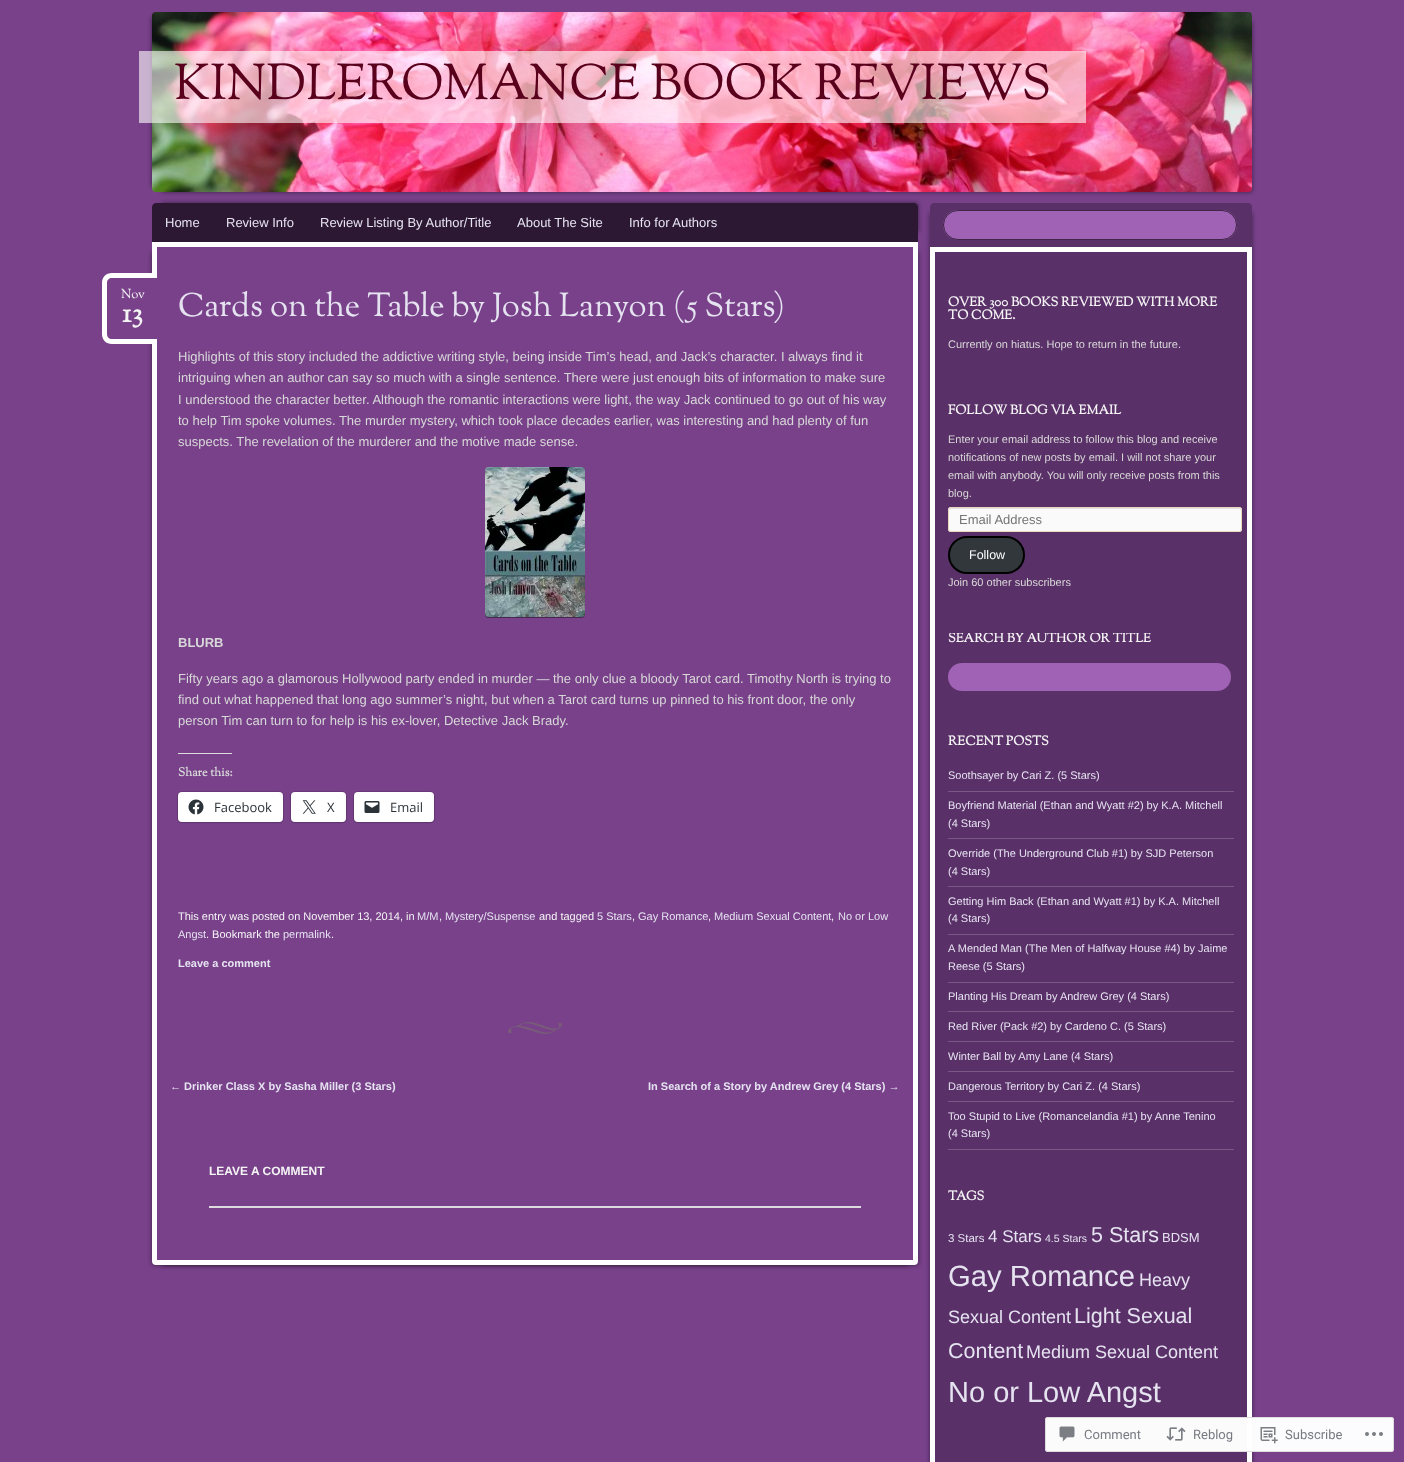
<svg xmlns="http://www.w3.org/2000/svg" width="1404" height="1462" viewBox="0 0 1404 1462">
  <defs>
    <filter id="blur1" x="-50%" y="-200%" width="200%" height="500%"><feGaussianBlur stdDeviation="2.5"/></filter>
    <filter id="blur2" x="-50%" y="-200%" width="200%" height="500%"><feGaussianBlur stdDeviation="0.5"/></filter>
    <filter id="blur3" x="-50%" y="-200%" width="200%" height="500%"><feGaussianBlur stdDeviation="1"/></filter>
    <clipPath id="clip1"><rect x="948" y="633" width="286" height="84"/></clipPath>
  </defs>
  <rect width="100%" height="100%" fill="#78418a"/>
  <rect x="152" y="17" width="1090" height="170" fill="#000000" fill-opacity="0.5" filter="url(#blur1)"/>
  <rect x="162" y="22" width="1090" height="170" fill="#000000" fill-opacity="0.5" filter="url(#blur1)"/>
  <image x="152" y="12" width="1100" height="180" href="img1.png"/>
  <rect x="139" y="51" width="947" height="72" fill="#ffffff" fill-opacity="0.6"/>
  <text x="174" y="99" font-family="Sorts Mill Goudy" font-size="50" fill="#59001d">KINDLEROMANCE BOOK REVIEWS</text>
  <rect x="162" y="203" width="756" height="29" fill="#000000" fill-opacity="0.5" filter="url(#blur1)"/>
  <path d="M156 203H914C916 203 918 205 918 207V242H152V207C152 205 154 203 156 203Z" fill="#2d1834"/>
  <text x="165" y="227" font-family="Liberation Sans" font-size="13" fill="#e6e3f1">Home</text>
  <text x="226" y="227" font-family="Liberation Sans" font-size="13" fill="#e6e3f1">Review Info</text>
  <text x="320" y="227" font-family="Liberation Sans" font-size="13" fill="#e6e3f1">Review Listing By Author/Title</text>
  <text x="517" y="227" font-family="Liberation Sans" font-size="13" fill="#e6e3f1">About The Site</text>
  <text x="629" y="227" font-family="Liberation Sans" font-size="13" fill="#e6e3f1">Info for Authors</text>
  <rect x="152" y="252" width="756" height="1013" fill="#000000" fill-opacity="0.5" filter="url(#blur1)"/>
  <rect x="162" y="252" width="756" height="1013" fill="#000000" fill-opacity="0.5" filter="url(#blur1)"/>
  <path d="M154.5 244.5H915.5V1261C915.5 1262 915 1262.5 914 1262.5H156C155 1262.5 154.5 1262 154.5 1261Z" fill="#78418a" stroke="#ffffff" stroke-width="5"/>
  <image x="508" y="1022" width="54" height="12" href="img2.png"/>
  <path d="M112 278H157V339H112C109 339 107 337 107 334V283C107 280 109 278 112 278Z" fill="#78418a"/>
  <path d="M112 273H157V344H112C106 344 102 340 102 334V283C102 277 106 273 112 273ZM112 278H157V339H112C109 339 107 337 107 334V283C107 280 109 278 112 278Z" fill="#ffffff" fill-rule="evenodd"/>
  <text x="121" y="298" font-family="Sorts Mill Goudy" font-size="13" fill="#f5f4f5">Nov</text>
  <text x="122" y="322" font-family="Sorts Mill Goudy" font-size="28" font-weight="bold" fill="#f5f4f5">13</text>
  <text x="178" y="316" font-family="Sorts Mill Goudy" font-size="33" fill="#e6e3f1">Cards on the Table by Josh Lanyon (5 Stars)</text>
  <text x="178" y="361" font-family="Liberation Sans" font-size="13" fill="#d8d8d8">Highlights of this story included the addictive writing style, being inside Tim’s head, and Jack’s character. I always find it</text>
  <text x="178" y="382" font-family="Liberation Sans" font-size="13" fill="#d8d8d8">intriguing when an author can say so much with a single sentence. There were just enough bits of information to make sure</text>
  <text x="178" y="404" font-family="Liberation Sans" font-size="13" fill="#d8d8d8">I understood the character better. Although the romantic interactions were light, the way Jack continued to go out of his way</text>
  <text x="178" y="425" font-family="Liberation Sans" font-size="13" fill="#d8d8d8">to help Tim spoke volumes. The murder mystery, which took place decades earlier, was interesting and had plenty of fun</text>
  <text x="178" y="446" font-family="Liberation Sans" font-size="13" fill="#d8d8d8">suspects. The revelation of the murderer and the motive made sense.</text>
  <rect x="485" y="468" width="100" height="150" rx="4" fill="#000000" fill-opacity="0.4" filter="url(#blur2)"/>
  <image x="485" y="467" width="100" height="150" href="img3.png"/>
  <text x="178" y="647" font-family="Liberation Sans" font-size="13" font-weight="bold" fill="#d8d8d8">BLURB</text>
  <text x="178" y="683" font-family="Liberation Sans" font-size="13" fill="#d8d8d8">Fifty years ago a glamorous Hollywood party ended in murder — the only clue a bloody Tarot card. Timothy North is trying to</text>
  <text x="178" y="704" font-family="Liberation Sans" font-size="13" fill="#d8d8d8">find out what happened that long ago summer’s night, but when a Tarot card turns up pinned to his front door, the only</text>
  <text x="178" y="725" font-family="Liberation Sans" font-size="13" fill="#d8d8d8">person Tim can turn to for help is his ex-lover, Detective Jack Brady.</text>
  <rect x="178" y="753" width="54" height="1" fill="#dcdcde"/>
  <text x="178" y="776" font-family="Sorts Mill Goudy" font-size="12" font-weight="bold" fill="#d8d8d8">Share this:</text>
  <rect x="177.5" y="791.5" width="106" height="31" rx="4.5" fill="none" stroke="#6a3979"/>
  <rect x="178" y="793" width="105" height="30" rx="4" fill="#000000" fill-opacity="0.12" filter="url(#blur3)"/>
  <rect x="178" y="792" width="105" height="30" rx="4" fill="#ffffff"/>
  <image x="188" y="799" width="16" height="16" href="img4.png"/>
  <text x="214" y="812" font-family="Open Sans" font-size="13" fill="#2c3338">Facebook</text>
  <rect x="290.5" y="791.5" width="56" height="31" rx="4.5" fill="none" stroke="#6a3979"/>
  <rect x="291" y="793" width="55" height="30" rx="4" fill="#000000" fill-opacity="0.12" filter="url(#blur3)"/>
  <rect x="291" y="792" width="55" height="30" rx="4" fill="#ffffff"/>
  <image x="302" y="800" width="14" height="14" href="img5.png"/>
  <text x="327" y="812" font-family="Open Sans" font-size="13" fill="#2c3338">X</text>
  <rect x="353.5" y="791.5" width="81" height="31" rx="4.5" fill="none" stroke="#6a3979"/>
  <rect x="354" y="793" width="80" height="30" rx="4" fill="#000000" fill-opacity="0.12" filter="url(#blur3)"/>
  <rect x="354" y="792" width="80" height="30" rx="4" fill="#ffffff"/>
  <image x="364" y="801" width="16" height="12" href="img6.png"/>
  <text x="390" y="812" font-family="Open Sans" font-size="13" fill="#2c3338">Email</text>
  <text x="178" y="920" font-family="Liberation Sans" font-size="11" fill="#f5f4f5">This entry was posted on November 13, 2014, in</text>
  <text x="417" y="920" font-family="Liberation Sans" font-size="11" fill="#e6e3f1">M/M</text>
  <text x="439" y="920" font-family="Liberation Sans" font-size="11" fill="#f5f4f5">,</text>
  <text x="445" y="920" font-family="Liberation Sans" font-size="11" fill="#e6e3f1">Mystery/Suspense</text>
  <text x="539" y="920" font-family="Liberation Sans" font-size="11" fill="#f5f4f5">and tagged</text>
  <text x="597" y="920" font-family="Liberation Sans" font-size="11" fill="#e6e3f1">5 Stars</text>
  <text x="632" y="920" font-family="Liberation Sans" font-size="11" fill="#f5f4f5">,</text>
  <text x="638" y="920" font-family="Liberation Sans" font-size="11" fill="#e6e3f1">Gay Romance</text>
  <text x="708" y="920" font-family="Liberation Sans" font-size="11" fill="#f5f4f5">,</text>
  <text x="714" y="920" font-family="Liberation Sans" font-size="11" fill="#e6e3f1">Medium Sexual Content</text>
  <text x="831" y="920" font-family="Liberation Sans" font-size="11" fill="#f5f4f5">,</text>
  <text x="838" y="920" font-family="Liberation Sans" font-size="11" fill="#e6e3f1">No or Low</text>
  <text x="178" y="938" font-family="Liberation Sans" font-size="11" fill="#e6e3f1">Angst</text>
  <text x="206" y="938" font-family="Liberation Sans" font-size="11" fill="#f5f4f5">. Bookmark the</text>
  <text x="283" y="938" font-family="Liberation Sans" font-size="11" fill="#e6e3f1">permalink</text>
  <text x="331" y="938" font-family="Liberation Sans" font-size="11" fill="#f5f4f5">.</text>
  <text x="178" y="967" font-family="Liberation Sans" font-size="11" font-weight="bold" fill="#e6e3f1">Leave a comment</text>
  <text x="170" y="1090" font-family="Liberation Sans" font-size="11" font-weight="bold" fill="#e6e3f1">← Drinker Class X by Sasha Miller (3 Stars)</text>
  <text x="648" y="1090" font-family="Liberation Sans" font-size="11" font-weight="bold" fill="#e6e3f1">In Search of a Story by Andrew Grey (4 Stars) →</text>
  <text x="209" y="1175" font-family="Liberation Sans" font-size="12" font-weight="bold" fill="#f5f4f5">LEAVE A COMMENT</text>
  <rect x="209" y="1206" width="652" height="2" fill="#dcdcde"/>
  <rect x="930" y="213" width="312" height="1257" fill="#000000" fill-opacity="0.5" filter="url(#blur1)"/>
  <rect x="940" y="213" width="312" height="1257" fill="#000000" fill-opacity="0.5" filter="url(#blur1)"/>
  <path d="M934 203H1248C1250 203 1252 205 1252 207V247H930V207C930 205 932 203 934 203Z" fill="#5a3068"/>
  <rect x="943" y="210" width="294" height="30" rx="15" fill="#a062b5"/>
  <rect x="943.5" y="210.5" width="293" height="29" rx="14.5" fill="none" stroke="#000000" stroke-opacity="0.6"/>
  <rect x="932.5" y="249.5" width="317" height="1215" fill="#5a3068" stroke="#ffffff" stroke-width="5"/>
  <text x="948" y="306" font-family="Sorts Mill Goudy" font-size="13" font-weight="bold" fill="#f5f4f5">OVER 300 BOOKS REVIEWED WITH MORE</text>
  <text x="948" y="319" font-family="Sorts Mill Goudy" font-size="13" font-weight="bold" fill="#f5f4f5">TO COME.</text>
  <text x="948" y="348" font-family="Liberation Sans" font-size="11" fill="#d8d8d8">Currently on hiatus. Hope to return in the future.</text>
  <text x="948" y="414" font-family="Sorts Mill Goudy" font-size="13" font-weight="bold" fill="#f5f4f5">FOLLOW BLOG VIA EMAIL</text>
  <text x="948" y="443" font-family="Liberation Sans" font-size="11" fill="#d8d8d8">Enter your email address to follow this blog and receive</text>
  <text x="948" y="461" font-family="Liberation Sans" font-size="11" fill="#d8d8d8">notifications of new posts by email. I will not share your</text>
  <text x="948" y="479" font-family="Liberation Sans" font-size="11" fill="#d8d8d8">email with anybody. You will only receive posts from this</text>
  <text x="948" y="497" font-family="Liberation Sans" font-size="11" fill="#d8d8d8">blog.</text>
  <rect x="948" y="507" width="294" height="25" rx="3" fill="#fafafa"/>
  <path d="M951 509H1239C1240 509 1241 510 1241 511C1241 510 1241 508 1239 508H950L949 511C949 510 950 509 951 509Z" fill="#e1e1e1"/>
  <rect x="948.5" y="507.5" width="293" height="24" rx="2.5" fill="none" stroke="#e7d9b9"/>
  <text x="959" y="524" font-family="Liberation Sans" font-size="13" fill="#757575">Email Address</text>
  <rect x="949" y="537" width="75" height="36" rx="18" fill="#32373c" stroke="#000000" stroke-width="2"/>
  <text x="969" y="559" font-family="Liberation Sans" font-size="12.5" fill="#ffffff">Follow</text>
  <text x="948" y="586" font-family="Liberation Sans" font-size="11" fill="#d8d8d8">Join 60 other subscribers</text>
  <g clip-path="url(#clip1)">
    <text x="948" y="642" font-family="Sorts Mill Goudy" font-size="13" font-weight="bold" fill="#f5f4f5">SEARCH BY AUTHOR OR TITLE</text>
  </g>
  <rect x="948" y="663" width="283" height="28" rx="14" fill="#a062b5"/>
  <text x="948" y="745" font-family="Sorts Mill Goudy" font-size="13" font-weight="bold" fill="#f5f4f5">RECENT POSTS</text>
  <rect x="948" y="791" width="286" height="1" fill="#7b5986"/>
  <text x="948" y="779" font-family="Liberation Sans" font-size="11" fill="#e6e3f1">Soothsayer by Cari Z. (5 Stars)</text>
  <rect x="948" y="838" width="286" height="1" fill="#7b5986"/>
  <text x="948" y="809" font-family="Liberation Sans" font-size="11" fill="#e6e3f1">Boyfriend Material (Ethan and Wyatt #2) by K.A. Mitchell</text>
  <text x="948" y="827" font-family="Liberation Sans" font-size="11" fill="#e6e3f1">(4 Stars)</text>
  <rect x="948" y="886" width="286" height="1" fill="#7b5986"/>
  <text x="948" y="857" font-family="Liberation Sans" font-size="11" fill="#e6e3f1">Override (The Underground Club #1) by SJD Peterson</text>
  <text x="948" y="875" font-family="Liberation Sans" font-size="11" fill="#e6e3f1">(4 Stars)</text>
  <rect x="948" y="934" width="286" height="1" fill="#7b5986"/>
  <text x="948" y="905" font-family="Liberation Sans" font-size="11" fill="#e6e3f1">Getting Him Back (Ethan and Wyatt #1) by K.A. Mitchell</text>
  <text x="948" y="922" font-family="Liberation Sans" font-size="11" fill="#e6e3f1">(4 Stars)</text>
  <rect x="948" y="982" width="286" height="1" fill="#7b5986"/>
  <text x="948" y="952" font-family="Liberation Sans" font-size="11" fill="#e6e3f1">A Mended Man (The Men of Halfway House #4) by Jaime</text>
  <text x="948" y="970" font-family="Liberation Sans" font-size="11" fill="#e6e3f1">Reese (5 Stars)</text>
  <rect x="948" y="1011" width="286" height="1" fill="#7b5986"/>
  <text x="948" y="1000" font-family="Liberation Sans" font-size="11" fill="#e6e3f1">Planting His Dream by Andrew Grey (4 Stars)</text>
  <rect x="948" y="1041" width="286" height="1" fill="#7b5986"/>
  <text x="948" y="1030" font-family="Liberation Sans" font-size="11" fill="#e6e3f1">Red River (Pack #2) by Cardeno C. (5 Stars)</text>
  <rect x="948" y="1071" width="286" height="1" fill="#7b5986"/>
  <text x="948" y="1060" font-family="Liberation Sans" font-size="11" fill="#e6e3f1">Winter Ball by Amy Lane (4 Stars)</text>
  <rect x="948" y="1101" width="286" height="1" fill="#7b5986"/>
  <text x="948" y="1090" font-family="Liberation Sans" font-size="11" fill="#e6e3f1">Dangerous Territory by Cari Z. (4 Stars)</text>
  <rect x="948" y="1149" width="286" height="1" fill="#7b5986"/>
  <text x="948" y="1120" font-family="Liberation Sans" font-size="11" fill="#e6e3f1">Too Stupid to Live (Romancelandia #1) by Anne Tenino</text>
  <text x="948" y="1137" font-family="Liberation Sans" font-size="11" fill="#e6e3f1">(4 Stars)</text>
  <text x="948" y="1200" font-family="Sorts Mill Goudy" font-size="13" font-weight="bold" fill="#f5f4f5">TAGS</text>
  <text x="948" y="1242" font-family="Liberation Sans" font-size="11.5" fill="#e6e3f1">3 Stars</text>
  <text x="988" y="1242" font-family="Liberation Sans" font-size="17" fill="#e6e3f1">4 Stars</text>
  <text x="1045" y="1242" font-family="Liberation Sans" font-size="10.5" fill="#e6e3f1">4.5 Stars</text>
  <text x="1091" y="1242" font-family="Liberation Sans" font-size="21.5" fill="#e6e3f1">5 Stars</text>
  <text x="1162" y="1242" font-family="Liberation Sans" font-size="13" fill="#e6e3f1">BDSM</text>
  <text x="948" y="1286" font-family="Liberation Sans" font-size="29.25" fill="#e6e3f1">Gay Romance</text>
  <text x="1139" y="1286" font-family="Liberation Sans" font-size="18" fill="#e6e3f1">Heavy</text>
  <text x="948" y="1323" font-family="Liberation Sans" font-size="18" fill="#e6e3f1">Sexual Content</text>
  <text x="1074" y="1323" font-family="Liberation Sans" font-size="21.5" fill="#e6e3f1">Light Sexual</text>
  <text x="948" y="1358" font-family="Liberation Sans" font-size="21.5" fill="#e6e3f1">Content</text>
  <text x="1026" y="1358" font-family="Liberation Sans" font-size="18" fill="#e6e3f1">Medium Sexual Content</text>
  <text x="948" y="1402" font-family="Liberation Sans" font-size="29" fill="#e6e3f1">No or Low Angst</text>
  <rect x="1045" y="1417" width="349" height="35" rx="3" fill="#ffffff" fill-opacity="0.98"/>
  <rect x="1045.5" y="1417.5" width="348" height="34" rx="2.5" fill="none" stroke="#dcdcde" stroke-opacity="0.98"/>
  <image x="1059" y="1426" width="16" height="16" href="img7.png"/>
  <text x="1084" y="1439" font-family="Roboto" font-size="13" fill="#777a81">Comment</text>
  <image x="1166" y="1427" width="20" height="14" href="img8.png"/>
  <text x="1193" y="1439" font-family="Roboto" font-size="13" fill="#777a81">Reblog</text>
  <image x="1260" y="1427" width="18" height="17" href="img9.png"/>
  <text x="1285" y="1439" font-family="Roboto" font-size="13" fill="#777a81">Subscribe</text>
  <image x="1365" y="1432" width="18" height="4" href="img10.png"/>
</svg>
